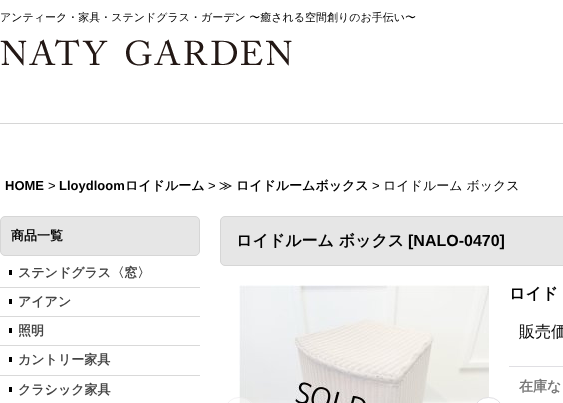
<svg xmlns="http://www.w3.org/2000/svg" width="563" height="403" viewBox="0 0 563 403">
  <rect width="100%" height="100%" fill="#ffffff"/>
  <rect x="0" y="123" width="563" height="1" fill="#d6d6d6"/>
  <text x="0" y="21" font-family="WenQuanYi Zen Hei" font-size="11" font-weight="500" fill="#000000">アンティーク・家具・ステンドグラス・ガーデン 〜癒される空間創りのお手伝い〜</text>
  <image x="0" y="39" width="292" height="27" href="img1.png"/>
  <text x="5" y="190" font-family="Liberation Sans" font-size="13" font-weight="bold" fill="#000000">HOME</text>
  <text x="48" y="190" font-family="Liberation Sans" font-size="13" fill="#000000">&gt;</text>
  <text x="59" y="190" font-family="Liberation Sans" font-size="13" font-weight="bold" fill="#000000">Lloydloom</text>
  <text x="125" y="190" font-family="WenQuanYi Zen Hei" font-size="13" font-weight="bold" fill="#000000">ロイドルーム</text>
  <text x="208" y="190" font-family="Liberation Sans" font-size="13" fill="#000000">&gt;</text>
  <text x="219" y="190" font-family="WenQuanYi Zen Hei" font-size="13" font-weight="bold" fill="#000000">≫ ロイドルームボックス</text>
  <text x="372" y="190" font-family="Liberation Sans" font-size="13" fill="#000000">&gt;</text>
  <text x="383" y="190" font-family="WenQuanYi Zen Hei" font-size="13" font-weight="500" fill="#000000">ロイドルーム ボックス</text>
  <rect x="0.5" y="216.5" width="199" height="39" rx="4.5" fill="#e6e6e6" stroke="#d6d6d6"/>
  <text x="11" y="240" font-family="WenQuanYi Zen Hei" font-size="13" font-weight="bold" fill="#000000">商品一覧</text>
  <rect x="0" y="287" width="200" height="1" fill="#d9d9d9"/>
  <rect x="9" y="270" width="3" height="5" fill="#000000"/>
  <text x="18" y="277" font-family="WenQuanYi Zen Hei" font-size="13" font-weight="bold" fill="#444444">ステンドグラス〈窓〉</text>
  <rect x="0" y="316" width="200" height="1" fill="#d9d9d9"/>
  <rect x="9" y="299" width="3" height="5" fill="#000000"/>
  <text x="18" y="306" font-family="WenQuanYi Zen Hei" font-size="13" font-weight="bold" fill="#444444">アイアン</text>
  <rect x="0" y="345" width="200" height="1" fill="#d9d9d9"/>
  <rect x="9" y="328" width="3" height="5" fill="#000000"/>
  <text x="18" y="335" font-family="WenQuanYi Zen Hei" font-size="13" font-weight="bold" fill="#444444">照明</text>
  <rect x="0" y="375" width="200" height="1" fill="#d9d9d9"/>
  <rect x="9" y="357" width="3" height="5" fill="#000000"/>
  <text x="18" y="364" font-family="WenQuanYi Zen Hei" font-size="13" font-weight="bold" fill="#444444">カントリー家具</text>
  <rect x="9" y="387" width="3" height="5" fill="#000000"/>
  <text x="18" y="394" font-family="WenQuanYi Zen Hei" font-size="13" font-weight="bold" fill="#444444">クラシック家具</text>
  <rect x="220.5" y="216.5" width="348" height="49" rx="4.5" fill="#e6e6e6" stroke="#d6d6d6"/>
  <text x="236" y="246" font-family="WenQuanYi Zen Hei" font-size="16" font-weight="bold" fill="#000000">ロイドルーム ボックス</text>
  <text x="408" y="246" font-family="Liberation Sans" font-size="16" font-weight="bold" fill="#000000">[NALO-0470]</text>
  <image x="239" y="285" width="250" height="118" href="img2.png"/>
  <rect x="226" y="397" width="27" height="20" rx="13.5" fill="#ffffff" fill-opacity="0.4"/>
  <rect x="226.5" y="397.5" width="26" height="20" rx="13" fill="none" stroke="#e0dfe3" stroke-opacity="0.4"/>
  <rect x="475.5" y="397.5" width="26" height="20" rx="13" fill="#ffffff" stroke="#e0dfe3"/>
  <text x="509" y="299" font-family="WenQuanYi Zen Hei" font-size="16" font-weight="bold" fill="#000000">ロイド</text>
  <rect x="509" y="366" width="54" height="1" fill="#e0dfe3"/>
  <text x="519" y="337" font-family="WenQuanYi Zen Hei" font-size="16" font-weight="500" fill="#000000">販売価</text>
  <text x="519" y="391" font-family="WenQuanYi Zen Hei" font-size="14" font-weight="bold" fill="#777777">在庫な</text>
</svg>
